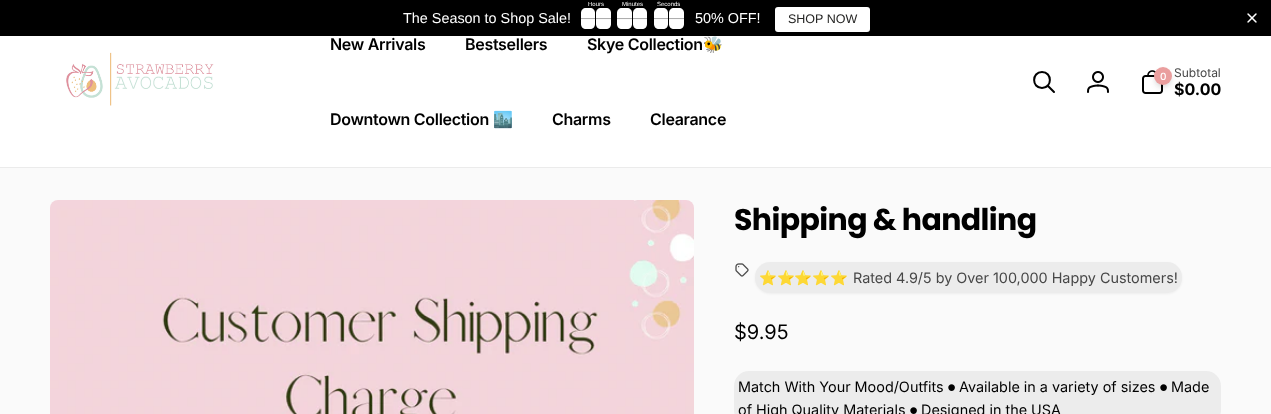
<svg xmlns="http://www.w3.org/2000/svg" width="1271" height="414" viewBox="0 0 1271 414">
  <defs>
    <filter id="blur1" x="-50%" y="-200%" width="200%" height="500%"><feGaussianBlur stdDeviation="2"/></filter>
    <filter id="blur2" x="-50%" y="-200%" width="200%" height="500%"><feGaussianBlur stdDeviation="3"/></filter>
    <filter id="blur3" x="-50%" y="-200%" width="200%" height="500%"><feGaussianBlur stdDeviation="1"/></filter>
  </defs>
  <rect width="100%" height="100%" fill="#ffffff"/>
  <rect x="0" y="0" width="1271" height="36" fill="#000000"/>
  <text x="588" y="6" font-family="Liberation Sans" font-size="6" fill="#ffffff">Hours</text>
  <path d="M586 8H590C593 8 595 10 595 13V19H581V13C581 10 583 8 586 8Z" fill="#ffffff"/>
  <rect x="581" y="18" width="14" height="1" fill="#333333" fill-opacity="0.4"/>
  <path d="M581 19H595V24C595 27 593 29 590 29H586C583 29 581 27 581 24Z" fill="#ffffff"/>
  <rect x="581" y="19" width="14" height="1" fill="#cccccc" fill-opacity="0.1"/>
  <path d="M601 8H606C609 8 611 10 611 13V19H596V13C596 10 598 8 601 8Z" fill="#ffffff"/>
  <rect x="596" y="18" width="15" height="1" fill="#333333" fill-opacity="0.4"/>
  <path d="M596 19H611V24C611 27 609 29 606 29H601C598 29 596 27 596 24Z" fill="#ffffff"/>
  <rect x="596" y="19" width="15" height="1" fill="#cccccc" fill-opacity="0.1"/>
  <text x="622" y="6" font-family="Liberation Sans" font-size="6" fill="#ffffff">Minutes</text>
  <path d="M622 8H627C630 8 632 10 632 13V19H617V13C617 10 619 8 622 8Z" fill="#ffffff"/>
  <rect x="617" y="18" width="15" height="1" fill="#333333" fill-opacity="0.4"/>
  <path d="M617 19H632V24C632 27 630 29 627 29H622C619 29 617 27 617 24Z" fill="#ffffff"/>
  <rect x="617" y="19" width="15" height="1" fill="#cccccc" fill-opacity="0.1"/>
  <path d="M638 8H642C645 8 647 10 647 13V19H633V13C633 10 635 8 638 8Z" fill="#ffffff"/>
  <rect x="633" y="18" width="14" height="1" fill="#333333" fill-opacity="0.4"/>
  <path d="M633 19H647V24C647 27 645 29 642 29H638C635 29 633 27 633 24Z" fill="#ffffff"/>
  <rect x="633" y="19" width="14" height="1" fill="#cccccc" fill-opacity="0.1"/>
  <text x="657" y="6" font-family="Liberation Sans" font-size="6" fill="#ffffff">Seconds</text>
  <path d="M659 8H663C666 8 668 10 668 13V19H654V13C654 10 656 8 659 8Z" fill="#ffffff"/>
  <rect x="654" y="18" width="14" height="1" fill="#333333" fill-opacity="0.4"/>
  <path d="M654 19H668V24C668 27 666 29 663 29H659C656 29 654 27 654 24Z" fill="#ffffff"/>
  <rect x="654" y="19" width="14" height="1" fill="#cccccc" fill-opacity="0.1"/>
  <path d="M674 8H679C682 8 684 10 684 13V19H669V13C669 10 671 8 674 8Z" fill="#ffffff"/>
  <rect x="669" y="18" width="15" height="1" fill="#333333" fill-opacity="0.4"/>
  <path d="M669 19H684V24C684 27 682 29 679 29H674C671 29 669 27 669 24Z" fill="#ffffff"/>
  <rect x="669" y="19" width="15" height="1" fill="#cccccc" fill-opacity="0.1"/>
  <rect x="650" y="14" width="3" height="2" rx="1" fill="#030202"/>
  <rect x="650" y="21" width="3" height="2" rx="1" fill="#030202"/>
  <text x="403" y="23" font-family="Liberation Sans" font-size="14.4" fill="#ffffff">The Season to Shop Sale!</text>
  <text x="695" y="23" font-family="Liberation Sans" font-size="14.4" fill="#ffffff">50% OFF!</text>
  <rect x="775" y="7" width="95" height="25" rx="3" fill="#ffffff"/>
  <text x="788" y="23" font-family="Liberation Sans" font-size="12.5" fill="#242423">SHOP NOW</text>
  <image x="1247" y="13" width="10" height="10" href="img1.png"/>
  <rect x="0" y="167" width="1271" height="1" fill="#ebebeb"/>
  <image x="66" y="52" width="148" height="54" href="img2.png"/>
  <text x="330" y="50" font-family="Inter" font-size="16" font-weight="600" letter-spacing="-0.3" fill="#000000">New Arrivals</text>
  <text x="465" y="50" font-family="Inter" font-size="16" font-weight="600" letter-spacing="-0.3" fill="#000000">Bestsellers</text>
  <text x="587" y="50" font-family="Inter" font-size="16" font-weight="600" letter-spacing="-0.3" fill="#000000">Skye Collection</text>
  <text x="703" y="50" font-family="Noto Color Emoji" font-size="16" font-weight="bold" letter-spacing="-0.3" fill="#000000">🐝</text>
  <text x="330" y="125" font-family="Inter" font-size="16" font-weight="600" letter-spacing="-0.3" fill="#000000">Downtown Collection</text>
  <text x="493" y="125" font-family="Noto Color Emoji" font-size="16" font-weight="bold" letter-spacing="-0.3" fill="#000000">🏙️</text>
  <text x="552" y="125" font-family="Inter" font-size="16" font-weight="600" letter-spacing="-0.3" fill="#000000">Charms</text>
  <text x="650" y="125" font-family="Inter" font-size="16" font-weight="600" letter-spacing="-0.3" fill="#000000">Clearance</text>
  <path d="M1054 92L1047.5 85.5M1042 88C1052.5 88 1052.5 72 1042 72C1031.5 72 1031.5 88 1042 88Z" fill="none" stroke="#000000" stroke-width="2" stroke-linecap="round" stroke-linejoin="round"/>
  <image x="1087" y="71" width="22" height="22" href="img3.png"/>
  <image x="1142" y="70" width="21" height="24" href="img4.png"/>
  <rect x="1155" y="70" width="16" height="16" rx="8" fill="#000000" fill-opacity="0.06" filter="url(#blur1)"/>
  <rect x="1155" y="72" width="16" height="16" rx="8" fill="#000000" fill-opacity="0.1" filter="url(#blur2)"/>
  <circle cx="1163" cy="76" r="9" fill="#ea9e9e"/>
  <text x="1160" y="80" font-family="Inter" font-size="10" font-weight="500" fill="#ffffff">0</text>
  <text x="1174" y="77" font-family="Inter" font-size="12" fill="#474747">Subtotal</text>
  <text x="1174" y="95" font-family="Inter" font-size="16" font-weight="bold" fill="#000000">$0.00</text>
  <rect x="0" y="168" width="1271" height="246" fill="#fafafa"/>
  <image x="50" y="200" width="644" height="214" href="img5.png"/>
  <text x="734" y="230" font-family="Poppins" font-size="30" font-weight="bold" letter-spacing="-0.6" fill="#000000">Shipping &amp; handling</text>
  <image x="735" y="263" width="14" height="14" href="img6.png"/>
  <rect x="755" y="263" width="427" height="31" rx="15" fill="#000000" fill-opacity="0.05" filter="url(#blur3)"/>
  <rect x="755" y="262" width="427" height="31" rx="15" fill="#ececec"/>
  <text x="759" y="283" font-family="Noto Color Emoji" font-size="14.4" fill="#474747">⭐⭐⭐⭐⭐</text>
  <text x="853" y="283" font-family="Inter" font-size="14.4" fill="#474747">Rated 4.9/5 by Over 100,000 Happy Customers!</text>
  <text x="734" y="339" font-family="Inter" font-size="20" fill="#000000">$9.95</text>
  <rect x="734" y="371" width="487" height="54" rx="15" fill="#ececec"/>
  <text x="738" y="392" font-family="Inter" font-size="14.4" fill="#000000">Match With Your Mood/Outfits</text>
  <text x="948" y="392" font-family="FreeSans" font-size="14.4" fill="#000000">⏺</text>
  <text x="959" y="392" font-family="Inter" font-size="14.4" fill="#000000">Available in a variety of sizes</text>
  <text x="1160" y="392" font-family="FreeSans" font-size="14.4" fill="#000000">⏺</text>
  <text x="1171" y="392" font-family="Inter" font-size="14.4" fill="#000000">Made</text>
  <text x="738" y="415" font-family="Inter" font-size="14.4" fill="#000000">of High Quality Materials</text>
  <text x="910" y="415" font-family="FreeSans" font-size="14.4" fill="#000000">⏺</text>
  <text x="921" y="415" font-family="Inter" font-size="14.4" fill="#000000">Designed in the USA</text>
</svg>
